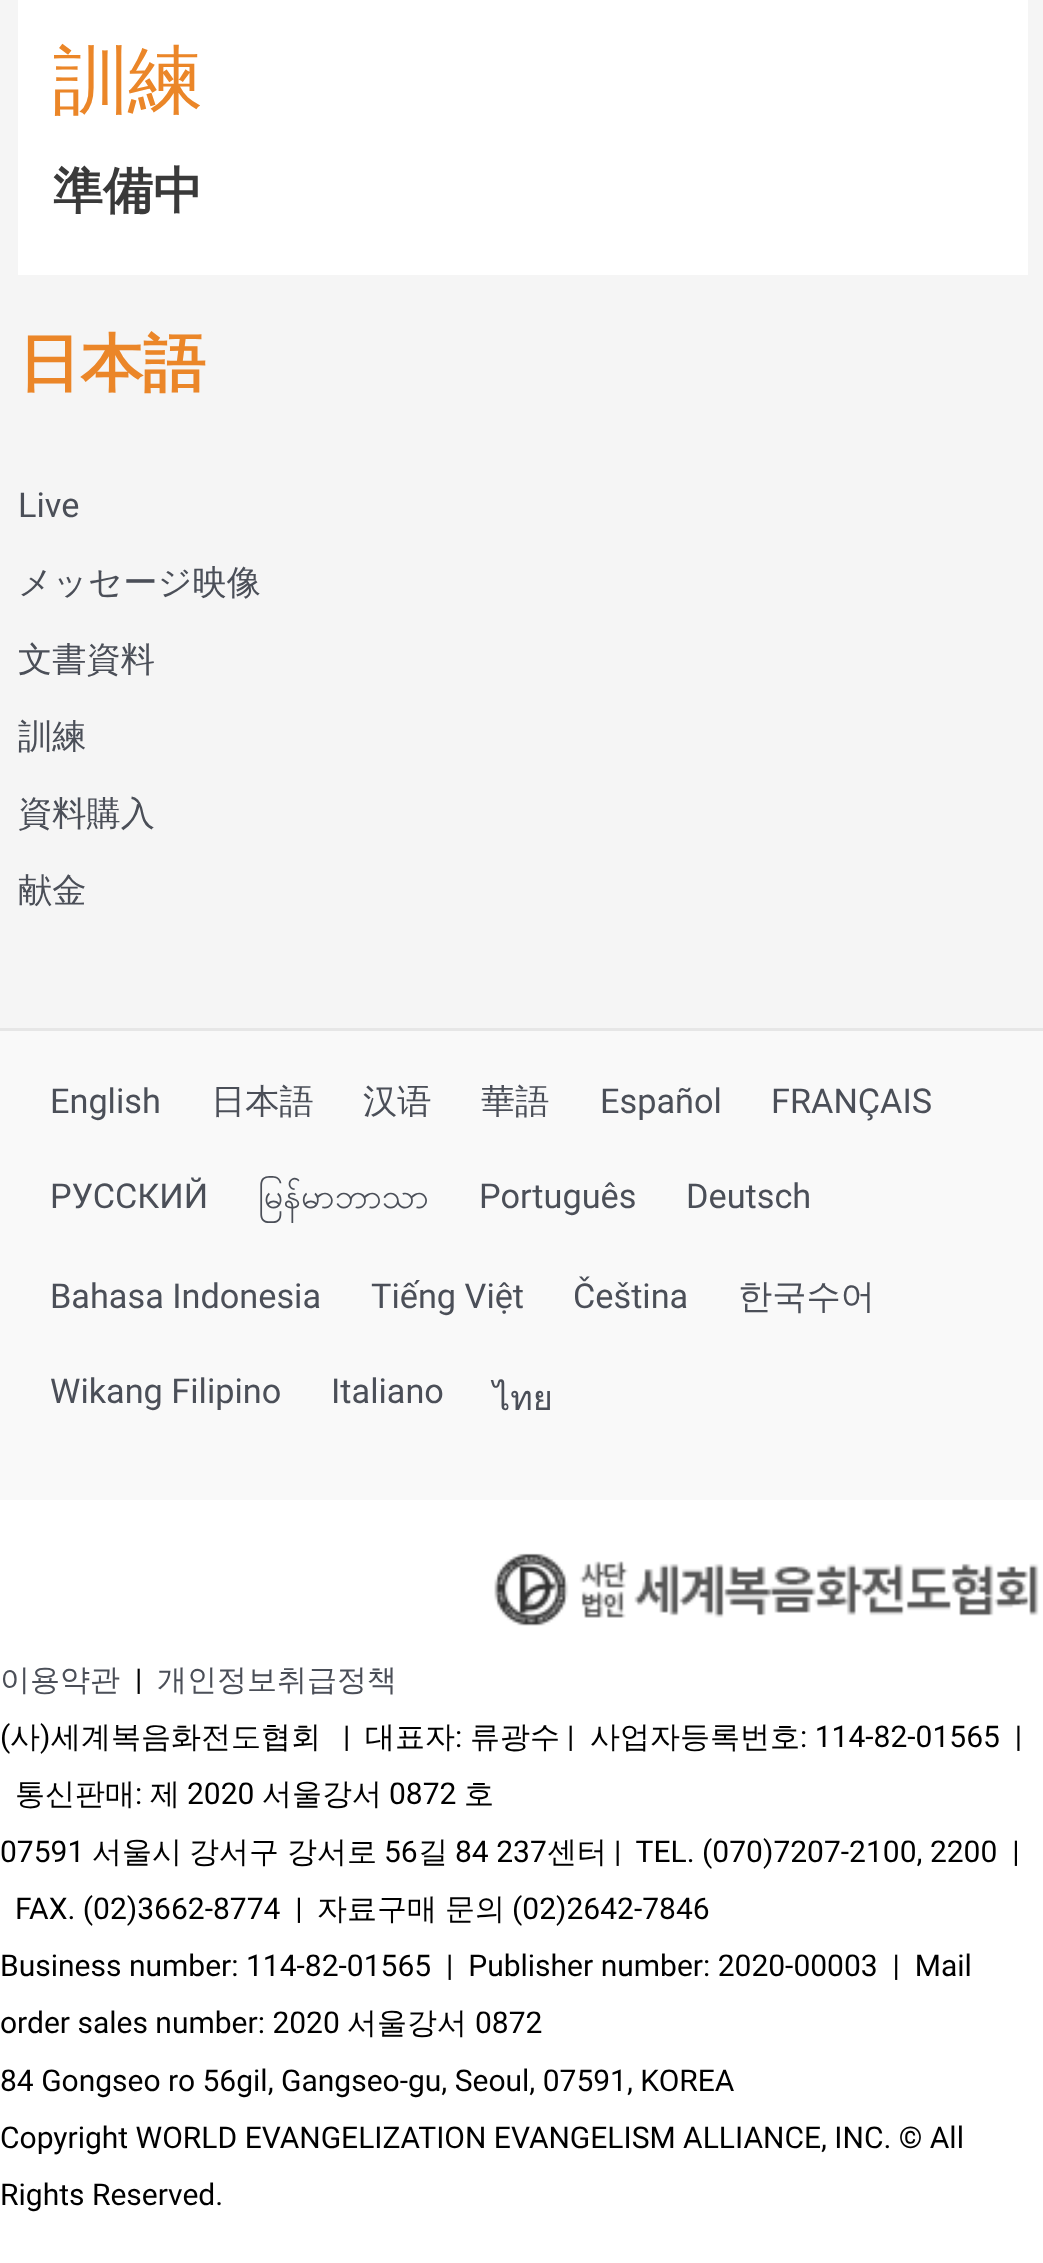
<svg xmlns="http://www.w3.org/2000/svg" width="1043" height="2263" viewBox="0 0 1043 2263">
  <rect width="100%" height="100%" fill="#f5f5f5"/>
  <rect x="18" y="0" width="1010" height="275" fill="#ffffff"/>
  <text x="53" y="106" font-family="WenQuanYi Zen Hei" font-size="75" font-weight="500" fill="#eb8628">訓練</text>
  <text x="53" y="208" font-family="WenQuanYi Zen Hei" font-size="50" font-weight="bold" fill="#3a3a3a">準備中</text>
  <text x="18" y="385" font-family="WenQuanYi Zen Hei" font-size="62.5" font-weight="bold" fill="#eb8628">日本語</text>
  <text x="18" y="517" font-family="Roboto" font-size="34.25" fill="#4b4f58">Live</text>
  <text x="18" y="594" font-family="WenQuanYi Zen Hei" font-size="34.25" font-weight="500" fill="#4b4f58">メッセージ映像</text>
  <text x="18" y="671" font-family="WenQuanYi Zen Hei" font-size="34.25" font-weight="500" fill="#4b4f58">文書資料</text>
  <text x="18" y="748" font-family="WenQuanYi Zen Hei" font-size="34.25" font-weight="500" fill="#4b4f58">訓練</text>
  <text x="18" y="825" font-family="WenQuanYi Zen Hei" font-size="34.25" font-weight="500" fill="#4b4f58">資料購入</text>
  <text x="18" y="902" font-family="WenQuanYi Zen Hei" font-size="34.25" font-weight="500" fill="#4b4f58">献金</text>
  <rect x="0" y="1031" width="1043" height="469" fill="#f9f9f9"/>
  <rect x="0" y="1028" width="1043" height="3" fill="#e6e6e6"/>
  <text x="50" y="1113" font-family="Roboto" font-size="34.25" fill="#4b4f58">English</text>
  <text x="211" y="1113" font-family="WenQuanYi Zen Hei" font-size="34.25" font-weight="500" fill="#4b4f58">日本語</text>
  <text x="363" y="1113" font-family="WenQuanYi Zen Hei" font-size="34.25" font-weight="500" fill="#4b4f58">汉语</text>
  <text x="481" y="1113" font-family="WenQuanYi Zen Hei" font-size="34.25" font-weight="500" fill="#4b4f58">華語</text>
  <text x="600" y="1113" font-family="Roboto" font-size="34.25" fill="#4b4f58">Español</text>
  <text x="771" y="1113" font-family="Roboto" font-size="34.25" fill="#4b4f58">FRANÇAIS</text>
  <text x="50" y="1208" font-family="Roboto" font-size="34.25" fill="#4b4f58">РУССКИЙ</text>
  <text x="258" y="1208" font-family="Padauk" font-size="34.25" fill="#4b4f58">မြန်မာဘာသာ</text>
  <text x="479" y="1208" font-family="Roboto" font-size="34.25" fill="#4b4f58">Português</text>
  <text x="686" y="1208" font-family="Roboto" font-size="34.25" fill="#4b4f58">Deutsch</text>
  <text x="50" y="1308" font-family="Roboto" font-size="34.25" fill="#4b4f58">Bahasa Indonesia</text>
  <text x="371" y="1308" font-family="Roboto" font-size="34.25" fill="#4b4f58">Tiếng Việt</text>
  <text x="573" y="1308" font-family="Roboto" font-size="34.25" fill="#4b4f58">Čeština</text>
  <text x="738" y="1308" font-family="WenQuanYi Zen Hei" font-size="34.25" font-weight="500" fill="#4b4f58">한국수어</text>
  <text x="50" y="1403" font-family="Roboto" font-size="34.25" fill="#4b4f58">Wikang Filipino</text>
  <text x="331" y="1403" font-family="Roboto" font-size="34.25" fill="#4b4f58">Italiano</text>
  <text x="493" y="1410" font-family="Loma" font-size="34.25" fill="#4b4f58">ไทย</text>
  <rect x="0" y="1500" width="1043" height="763" fill="#ffffff"/>
  <image x="494" y="1553" width="545" height="73" href="img1.png"/>
  <text x="0" y="1690" font-family="WenQuanYi Zen Hei" font-size="30" font-weight="500" fill="#4b4f58">이용약관</text>
  <text x="135" y="1690" font-family="Roboto" font-size="30" fill="#000000">|</text>
  <text x="157" y="1690" font-family="WenQuanYi Zen Hei" font-size="30" font-weight="500" fill="#4b4f58">개인정보취급정책</text>
  <text x="0" y="1747" font-family="Roboto" font-size="30" fill="#000000">(</text>
  <text x="10" y="1747" font-family="WenQuanYi Zen Hei" font-size="30" font-weight="500" fill="#000000">사</text>
  <text x="40" y="1747" font-family="Roboto" font-size="30" fill="#000000">)</text>
  <text x="51" y="1747" font-family="WenQuanYi Zen Hei" font-size="30" font-weight="500" fill="#000000">세계복음화전도협회</text>
  <text x="343" y="1747" font-family="Roboto" font-size="30" fill="#000000">|</text>
  <text x="365" y="1747" font-family="WenQuanYi Zen Hei" font-size="30" font-weight="500" fill="#000000">대표자</text>
  <text x="455" y="1747" font-family="Roboto" font-size="30" fill="#000000">:</text>
  <text x="470" y="1747" font-family="WenQuanYi Zen Hei" font-size="30" font-weight="500" fill="#000000">류광수</text>
  <text x="567" y="1747" font-family="Roboto" font-size="30" fill="#000000">|</text>
  <text x="590" y="1747" font-family="WenQuanYi Zen Hei" font-size="30" font-weight="500" fill="#000000">사업자등록번호</text>
  <text x="800" y="1747" font-family="Roboto" font-size="30" fill="#000000" xml:space="preserve">: 114-82-01565  |</text>
  <text x="15" y="1804" font-family="WenQuanYi Zen Hei" font-size="30" font-weight="500" fill="#000000">통신판매</text>
  <text x="135" y="1804" font-family="Roboto" font-size="30" fill="#000000">:</text>
  <text x="150" y="1804" font-family="WenQuanYi Zen Hei" font-size="30" font-weight="500" fill="#000000">제</text>
  <text x="187" y="1804" font-family="Roboto" font-size="30" fill="#000000">2020</text>
  <text x="262" y="1804" font-family="WenQuanYi Zen Hei" font-size="30" font-weight="500" fill="#000000">서울강서</text>
  <text x="389" y="1804" font-family="Roboto" font-size="30" fill="#000000">0872</text>
  <text x="464" y="1804" font-family="WenQuanYi Zen Hei" font-size="30" font-weight="500" fill="#000000">호</text>
  <text x="0" y="1862" font-family="Roboto" font-size="30" fill="#000000">07591</text>
  <text x="92" y="1862" font-family="WenQuanYi Zen Hei" font-size="30" font-weight="500" fill="#000000">서울시</text>
  <text x="189" y="1862" font-family="WenQuanYi Zen Hei" font-size="30" font-weight="500" fill="#000000">강서구</text>
  <text x="287" y="1862" font-family="WenQuanYi Zen Hei" font-size="30" font-weight="500" fill="#000000">강서로</text>
  <text x="384" y="1862" font-family="Roboto" font-size="30" fill="#000000">56</text>
  <text x="418" y="1862" font-family="WenQuanYi Zen Hei" font-size="30" font-weight="500" fill="#000000">길</text>
  <text x="455" y="1862" font-family="Roboto" font-size="30" fill="#000000">84 237</text>
  <text x="547" y="1862" font-family="WenQuanYi Zen Hei" font-size="30" font-weight="500" fill="#000000">센터</text>
  <text x="614" y="1862" font-family="Roboto" font-size="30" fill="#000000" xml:space="preserve">|  TEL. (070)7207-2100, 2200  |</text>
  <text x="15" y="1919" font-family="Roboto" font-size="30" fill="#000000" xml:space="preserve">FAX. (02)3662-8774  |</text>
  <text x="317" y="1919" font-family="WenQuanYi Zen Hei" font-size="30" font-weight="500" fill="#000000">자료구매</text>
  <text x="445" y="1919" font-family="WenQuanYi Zen Hei" font-size="30" font-weight="500" fill="#000000">문의</text>
  <text x="512" y="1919" font-family="Roboto" font-size="30" fill="#000000">(02)2642-7846</text>
  <text x="0" y="1976" font-family="Roboto" font-size="30" fill="#000000" xml:space="preserve">Business number: 114-82-01565  |  Publisher number: 2020-00003  |  Mail</text>
  <text x="0" y="2033" font-family="Roboto" font-size="30" fill="#000000">order sales number: 2020</text>
  <text x="347" y="2033" font-family="WenQuanYi Zen Hei" font-size="30" font-weight="500" fill="#000000">서울강서</text>
  <text x="475" y="2033" font-family="Roboto" font-size="30" fill="#000000">0872</text>
  <text x="0" y="2091" font-family="Roboto" font-size="30" fill="#000000">84 Gongseo ro 56gil, Gangseo-gu, Seoul, 07591, KOREA</text>
  <text x="0" y="2148" font-family="Roboto" font-size="30" fill="#000000">Copyright WORLD EVANGELIZATION EVANGELISM ALLIANCE, INC. © All</text>
  <text x="0" y="2205" font-family="Roboto" font-size="30" fill="#000000">Rights Reserved.</text>
</svg>
